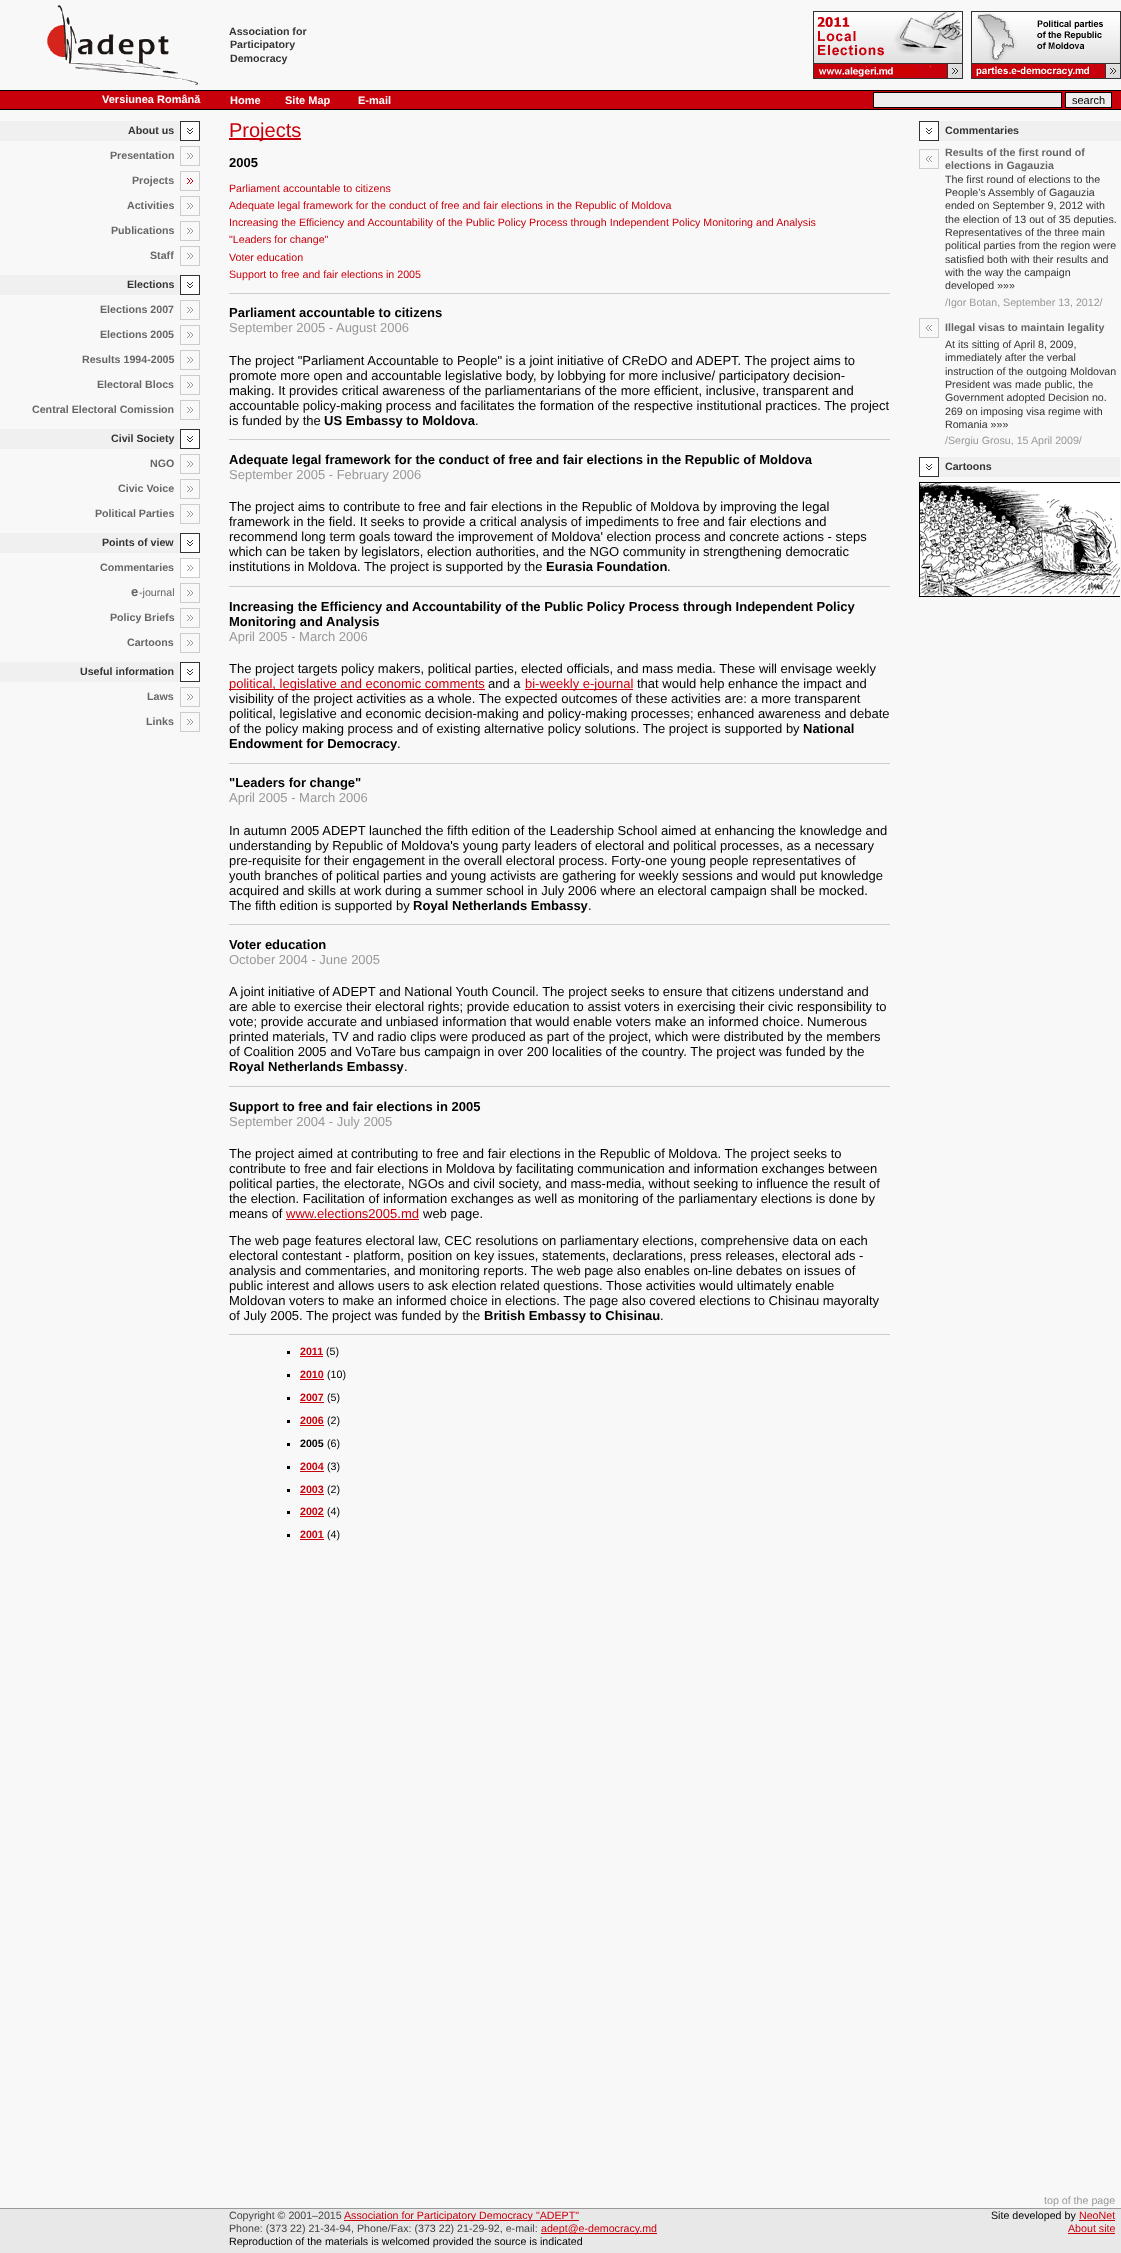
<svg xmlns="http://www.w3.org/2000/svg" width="1121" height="2253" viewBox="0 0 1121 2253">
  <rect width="100%" height="100%" fill="#f8f8f8"/>
  <image x="47" y="5" width="151" height="80" href="img1.png"/>
  <text x="229" y="35" font-family="Liberation Sans" font-size="10.67" font-weight="bold" fill="#333333">Association for</text>
  <text x="230" y="48" font-family="Liberation Sans" font-size="10.67" font-weight="bold" fill="#333333">Participatory</text>
  <text x="230" y="62" font-family="Liberation Sans" font-size="10.67" font-weight="bold" fill="#333333">Democracy</text>
  <image x="813" y="11" width="150" height="68" href="img2.png"/>
  <image x="971" y="11" width="150" height="68" href="img3.png"/>
  <rect x="0" y="90" width="1121" height="1" fill="#000000"/>
  <rect x="0" y="91" width="1121" height="18" fill="#c8000c"/>
  <text x="102" y="103" font-family="Liberation Sans" font-size="11" font-weight="bold" fill="#ffffff">Versiunea Română</text>
  <text x="230" y="104" font-family="Liberation Sans" font-size="11" font-weight="bold" fill="#ffffff">Home</text>
  <text x="285" y="104" font-family="Liberation Sans" font-size="11" font-weight="bold" fill="#ffffff">Site Map</text>
  <text x="358" y="104" font-family="Liberation Sans" font-size="11" font-weight="bold" fill="#ffffff">E-mail</text>
  <rect x="873.5" y="92.5" width="188" height="15" fill="#eeeeee" stroke="#000000"/>
  <rect x="1065.5" y="92.5" width="46" height="15" fill="#efefef" stroke="#000000"/>
  <text x="1072" y="104" font-family="Liberation Sans" font-size="11" fill="#000000">search</text>
  <rect x="0" y="109" width="1121" height="1" fill="#000000"/>
  <rect x="0" y="121" width="180" height="20" fill="#f0f0f0"/>
  <text x="128" y="134" font-family="Liberation Sans" font-size="10.67" font-weight="bold" fill="#333333">About us</text>
  <image x="180" y="121" width="20" height="20" href="img4.png"/>
  <text x="110" y="159" font-family="Liberation Sans" font-size="10.67" font-weight="bold" fill="#666666">Presentation</text>
  <image x="180" y="146" width="20" height="20" href="img5.png"/>
  <text x="132" y="184" font-family="Liberation Sans" font-size="10.67" font-weight="bold" fill="#666666">Projects</text>
  <image x="180" y="171" width="20" height="20" href="img6.png"/>
  <text x="127" y="209" font-family="Liberation Sans" font-size="10.67" font-weight="bold" fill="#666666">Activities</text>
  <image x="180" y="196" width="20" height="20" href="img5.png"/>
  <text x="111" y="234" font-family="Liberation Sans" font-size="10.67" font-weight="bold" fill="#666666">Publications</text>
  <image x="180" y="221" width="20" height="20" href="img5.png"/>
  <text x="150" y="259" font-family="Liberation Sans" font-size="10.67" font-weight="bold" fill="#666666">Staff</text>
  <image x="180" y="246" width="20" height="20" href="img5.png"/>
  <rect x="0" y="275" width="180" height="20" fill="#f0f0f0"/>
  <text x="127" y="288" font-family="Liberation Sans" font-size="10.67" font-weight="bold" fill="#333333">Elections</text>
  <image x="180" y="275" width="20" height="20" href="img4.png"/>
  <text x="100" y="313" font-family="Liberation Sans" font-size="10.67" font-weight="bold" fill="#666666">Elections 2007</text>
  <image x="180" y="300" width="20" height="20" href="img5.png"/>
  <text x="100" y="338" font-family="Liberation Sans" font-size="10.67" font-weight="bold" fill="#666666">Elections 2005</text>
  <image x="180" y="325" width="20" height="20" href="img5.png"/>
  <text x="82" y="363" font-family="Liberation Sans" font-size="10.67" font-weight="bold" fill="#666666">Results 1994-2005</text>
  <image x="180" y="350" width="20" height="20" href="img5.png"/>
  <text x="97" y="388" font-family="Liberation Sans" font-size="10.67" font-weight="bold" fill="#666666">Electoral Blocs</text>
  <image x="180" y="375" width="20" height="20" href="img5.png"/>
  <text x="32" y="413" font-family="Liberation Sans" font-size="10.67" font-weight="bold" fill="#666666">Central Electoral Comission</text>
  <image x="180" y="400" width="20" height="20" href="img5.png"/>
  <rect x="0" y="429" width="180" height="20" fill="#f0f0f0"/>
  <text x="111" y="442" font-family="Liberation Sans" font-size="10.67" font-weight="bold" fill="#333333">Civil Society</text>
  <image x="180" y="429" width="20" height="20" href="img4.png"/>
  <text x="150" y="467" font-family="Liberation Sans" font-size="10.67" font-weight="bold" fill="#666666">NGO</text>
  <image x="180" y="454" width="20" height="20" href="img5.png"/>
  <text x="118" y="492" font-family="Liberation Sans" font-size="10.67" font-weight="bold" fill="#666666">Civic Voice</text>
  <image x="180" y="479" width="20" height="20" href="img5.png"/>
  <text x="95" y="517" font-family="Liberation Sans" font-size="10.67" font-weight="bold" fill="#666666">Political Parties</text>
  <image x="180" y="504" width="20" height="20" href="img5.png"/>
  <rect x="0" y="533" width="180" height="20" fill="#f0f0f0"/>
  <text x="102" y="546" font-family="Liberation Sans" font-size="10.67" font-weight="bold" fill="#333333">Points of view</text>
  <image x="180" y="533" width="20" height="20" href="img4.png"/>
  <text x="100" y="571" font-family="Liberation Sans" font-size="10.67" font-weight="bold" fill="#666666">Commentaries</text>
  <image x="180" y="558" width="20" height="20" href="img7.png"/>
  <text x="131" y="596" font-family="Liberation Sans" font-size="13" font-weight="bold" fill="#666666">e</text>
  <text x="139" y="596" font-family="Liberation Sans" font-size="10.67" fill="#666666">-journal</text>
  <image x="180" y="583" width="20" height="20" href="img5.png"/>
  <text x="110" y="621" font-family="Liberation Sans" font-size="10.67" font-weight="bold" fill="#666666">Policy Briefs</text>
  <image x="180" y="608" width="20" height="20" href="img5.png"/>
  <text x="127" y="646" font-family="Liberation Sans" font-size="10.67" font-weight="bold" fill="#666666">Cartoons</text>
  <image x="180" y="633" width="20" height="20" href="img5.png"/>
  <rect x="0" y="662" width="180" height="20" fill="#f0f0f0"/>
  <text x="80" y="675" font-family="Liberation Sans" font-size="10.67" font-weight="bold" fill="#333333">Useful information</text>
  <image x="180" y="662" width="20" height="20" href="img4.png"/>
  <text x="147" y="700" font-family="Liberation Sans" font-size="10.67" font-weight="bold" fill="#666666">Laws</text>
  <image x="180" y="687" width="20" height="20" href="img5.png"/>
  <text x="146" y="725" font-family="Liberation Sans" font-size="10.67" font-weight="bold" fill="#666666">Links</text>
  <image x="180" y="712" width="20" height="20" href="img5.png"/>
  <rect x="229" y="138" width="72" height="2" fill="#c8000c"/>
  <text x="229" y="137" font-family="Liberation Sans" font-size="20" fill="#c8000c">Projects</text>
  <text x="229" y="167" font-family="Liberation Sans" font-size="13" font-weight="bold" fill="#000000">2005</text>
  <text x="229" y="192" font-family="Liberation Sans" font-size="10.67" fill="#c8000c">Parliament accountable to citizens</text>
  <text x="229" y="209" font-family="Liberation Sans" font-size="10.67" fill="#c8000c">Adequate legal framework for the conduct of free and fair elections in the Republic of Moldova</text>
  <text x="229" y="226" font-family="Liberation Sans" font-size="10.67" fill="#c8000c">Increasing the Efficiency and Accountability of the Public Policy Process through Independent Policy Monitoring and Analysis</text>
  <text x="229" y="243" font-family="Liberation Sans" font-size="10.67" fill="#c8000c">"Leaders for change"</text>
  <text x="229" y="261" font-family="Liberation Sans" font-size="10.67" fill="#c8000c">Voter education</text>
  <text x="229" y="278" font-family="Liberation Sans" font-size="10.67" fill="#c8000c">Support to free and fair elections in 2005</text>
  <rect x="229" y="293" width="661" height="1" fill="#cccccc"/>
  <text x="229" y="317" font-family="Liberation Sans" font-size="13" font-weight="bold" fill="#000000">Parliament accountable to citizens</text>
  <text x="229" y="332" font-family="Liberation Sans" font-size="13" fill="#999999">September 2005 - August 2006</text>
  <text x="229" y="365" font-family="Liberation Sans" font-size="13" fill="#000000">The project "Parliament Accountable to People" is a joint initiative of CReDO and ADEPT. The project aims to</text>
  <text x="229" y="380" font-family="Liberation Sans" font-size="13" fill="#000000">promote more open and accountable legislative body, by lobbying for more inclusive/ participatory decision-</text>
  <text x="229" y="395" font-family="Liberation Sans" font-size="13" fill="#000000">making. It provides critical awareness of the parliamentarians of the more efficient, inclusive, transparent and</text>
  <text x="229" y="410" font-family="Liberation Sans" font-size="13" fill="#000000">accountable policy-making process and facilitates the formation of the respective institutional practices. The project</text>
  <text x="229" y="425" font-family="Liberation Sans" font-size="13" fill="#000000">is funded by the</text>
  <text x="324" y="425" font-family="Liberation Sans" font-size="13" font-weight="bold" fill="#000000">US Embassy to Moldova</text>
  <text x="475" y="425" font-family="Liberation Sans" font-size="13" fill="#000000">.</text>
  <rect x="229" y="439" width="661" height="1" fill="#cccccc"/>
  <text x="229" y="464" font-family="Liberation Sans" font-size="13" font-weight="bold" fill="#000000">Adequate legal framework for the conduct of free and fair elections in the Republic of Moldova</text>
  <text x="229" y="479" font-family="Liberation Sans" font-size="13" fill="#999999">September 2005 - February 2006</text>
  <text x="229" y="511" font-family="Liberation Sans" font-size="13" fill="#000000">The project aims to contribute to free and fair elections in the Republic of Moldova by improving the legal</text>
  <text x="229" y="526" font-family="Liberation Sans" font-size="13" fill="#000000">framework in the field. It seeks to provide a critical analysis of impediments to free and fair elections and</text>
  <text x="229" y="541" font-family="Liberation Sans" font-size="13" fill="#000000">recommend long term goals toward the improvement of Moldova' election process and concrete actions - steps</text>
  <text x="229" y="556" font-family="Liberation Sans" font-size="13" fill="#000000">which can be taken by legislators, election authorities, and the NGO community in strengthening democratic</text>
  <text x="229" y="571" font-family="Liberation Sans" font-size="13" fill="#000000">institutions in Moldova. The project is supported by the</text>
  <text x="546" y="571" font-family="Liberation Sans" font-size="13" font-weight="bold" fill="#000000">Eurasia Foundation</text>
  <text x="667" y="571" font-family="Liberation Sans" font-size="13" fill="#000000">.</text>
  <rect x="229" y="586" width="661" height="1" fill="#cccccc"/>
  <text x="229" y="611" font-family="Liberation Sans" font-size="13" font-weight="bold" fill="#000000">Increasing the Efficiency and Accountability of the Public Policy Process through Independent Policy</text>
  <text x="229" y="626" font-family="Liberation Sans" font-size="13" font-weight="bold" fill="#000000">Monitoring and Analysis</text>
  <text x="229" y="641" font-family="Liberation Sans" font-size="13" fill="#999999">April 2005 - March 2006</text>
  <text x="229" y="673" font-family="Liberation Sans" font-size="13" fill="#000000">The project targets policy makers, political parties, elected officials, and mass media. These will envisage weekly</text>
  <rect x="229" y="689" width="256" height="1" fill="#c8000c"/>
  <text x="229" y="688" font-family="Liberation Sans" font-size="13" fill="#c8000c">political, legislative and economic comments</text>
  <text x="488" y="688" font-family="Liberation Sans" font-size="13" fill="#000000">and a</text>
  <rect x="525" y="689" width="108" height="1" fill="#c8000c"/>
  <text x="525" y="688" font-family="Liberation Sans" font-size="13" fill="#c8000c">bi-weekly e-journal</text>
  <text x="637" y="688" font-family="Liberation Sans" font-size="13" fill="#000000">that would help enhance the impact and</text>
  <text x="229" y="703" font-family="Liberation Sans" font-size="13" fill="#000000">visibility of the project activities as a whole. The expected outcomes of these activities are: a more transparent</text>
  <text x="229" y="718" font-family="Liberation Sans" font-size="13" fill="#000000">political, legislative and economic decision-making and policy-making processes; enhanced awareness and debate</text>
  <text x="229" y="733" font-family="Liberation Sans" font-size="13" fill="#000000">of the policy making process and of existing alternative policy solutions. The project is supported by</text>
  <text x="803" y="733" font-family="Liberation Sans" font-size="13" font-weight="bold" fill="#000000">National</text>
  <text x="229" y="748" font-family="Liberation Sans" font-size="13" font-weight="bold" fill="#000000">Endowment for Democracy</text>
  <text x="397" y="748" font-family="Liberation Sans" font-size="13" fill="#000000">.</text>
  <rect x="229" y="763" width="661" height="1" fill="#cccccc"/>
  <text x="229" y="787" font-family="Liberation Sans" font-size="13" font-weight="bold" fill="#000000">"Leaders for change"</text>
  <text x="229" y="802" font-family="Liberation Sans" font-size="13" fill="#999999">April 2005 - March 2006</text>
  <text x="229" y="835" font-family="Liberation Sans" font-size="13" fill="#000000">In autumn 2005 ADEPT launched the fifth edition of the Leadership School aimed at enhancing the knowledge and</text>
  <text x="229" y="850" font-family="Liberation Sans" font-size="13" fill="#000000">understanding by Republic of Moldova's young party leaders of electoral and political processes, as a necessary</text>
  <text x="229" y="865" font-family="Liberation Sans" font-size="13" fill="#000000">pre-requisite for their engagement in the overall electoral process. Forty-one young people representatives of</text>
  <text x="229" y="880" font-family="Liberation Sans" font-size="13" fill="#000000">youth branches of political parties and young activists are gathering for weekly sessions and would put knowledge</text>
  <text x="229" y="895" font-family="Liberation Sans" font-size="13" fill="#000000">acquired and skills at work during a summer school in July 2006 where an electoral campaign shall be mocked.</text>
  <text x="229" y="910" font-family="Liberation Sans" font-size="13" fill="#000000">The fifth edition is supported by</text>
  <text x="413" y="910" font-family="Liberation Sans" font-size="13" font-weight="bold" fill="#000000">Royal Netherlands Embassy</text>
  <text x="588" y="910" font-family="Liberation Sans" font-size="13" fill="#000000">.</text>
  <rect x="229" y="924" width="661" height="1" fill="#cccccc"/>
  <text x="229" y="949" font-family="Liberation Sans" font-size="13" font-weight="bold" fill="#000000">Voter education</text>
  <text x="229" y="964" font-family="Liberation Sans" font-size="13" fill="#999999">October 2004 - June 2005</text>
  <text x="229" y="996" font-family="Liberation Sans" font-size="13" fill="#000000">A joint initiative of ADEPT and National Youth Council. The project seeks to ensure that citizens understand and</text>
  <text x="229" y="1011" font-family="Liberation Sans" font-size="13" fill="#000000">are able to exercise their electoral rights; provide education to assist voters in exercising their civic responsibility to</text>
  <text x="229" y="1026" font-family="Liberation Sans" font-size="13" fill="#000000">vote; provide accurate and unbiased information that would enable voters make an informed choice. Numerous</text>
  <text x="229" y="1041" font-family="Liberation Sans" font-size="13" fill="#000000">printed materials, TV and radio clips were produced as part of the project, which were distributed by the members</text>
  <text x="229" y="1056" font-family="Liberation Sans" font-size="13" fill="#000000">of Coalition 2005 and VoTare bus campaign in over 200 localities of the country. The project was funded by the</text>
  <text x="229" y="1071" font-family="Liberation Sans" font-size="13" font-weight="bold" fill="#000000">Royal Netherlands Embassy</text>
  <text x="404" y="1071" font-family="Liberation Sans" font-size="13" fill="#000000">.</text>
  <rect x="229" y="1086" width="661" height="1" fill="#cccccc"/>
  <text x="229" y="1111" font-family="Liberation Sans" font-size="13" font-weight="bold" fill="#000000">Support to free and fair elections in 2005</text>
  <text x="229" y="1126" font-family="Liberation Sans" font-size="13" fill="#999999">September 2004 - July 2005</text>
  <text x="229" y="1158" font-family="Liberation Sans" font-size="13" fill="#000000">The project aimed at contributing to free and fair elections in the Republic of Moldova. The project seeks to</text>
  <text x="229" y="1173" font-family="Liberation Sans" font-size="13" fill="#000000">contribute to free and fair elections in Moldova by facilitating communication and information exchanges between</text>
  <text x="229" y="1188" font-family="Liberation Sans" font-size="13" fill="#000000">political parties, the electorate, NGOs and civil society, and mass-media, without seeking to influence the result of</text>
  <text x="229" y="1203" font-family="Liberation Sans" font-size="13" fill="#000000">the election. Facilitation of information exchanges as well as monitoring of the parliamentary elections is done by</text>
  <text x="229" y="1218" font-family="Liberation Sans" font-size="13" fill="#000000">means of</text>
  <text x="286" y="1218" font-family="Liberation Sans" font-size="13" fill="#c8000c">www.elections2005.md</text>
  <rect x="286" y="1219" width="133" height="1" fill="#c8000c"/>
  <text x="423" y="1218" font-family="Liberation Sans" font-size="13" fill="#000000">web page.</text>
  <text x="229" y="1245" font-family="Liberation Sans" font-size="13" fill="#000000">The web page features electoral law, CEC resolutions on parliamentary elections, comprehensive data on each</text>
  <text x="229" y="1260" font-family="Liberation Sans" font-size="13" fill="#000000">electoral contestant - platform, position on key issues, statements, declarations, press releases, electoral ads -</text>
  <text x="229" y="1275" font-family="Liberation Sans" font-size="13" fill="#000000">analysis and commentaries, and monitoring reports. The web page also enables on-line debates on issues of</text>
  <text x="229" y="1290" font-family="Liberation Sans" font-size="13" fill="#000000">public interest and allows users to ask election related questions. Those activities would ultimately enable</text>
  <text x="229" y="1305" font-family="Liberation Sans" font-size="13" fill="#000000">Moldovan voters to make an informed choice in elections. The page also covered elections to Chisinau mayoralty</text>
  <text x="229" y="1320" font-family="Liberation Sans" font-size="13" fill="#000000">of July 2005. The project was funded by the</text>
  <text x="484" y="1320" font-family="Liberation Sans" font-size="13" font-weight="bold" fill="#000000">British Embassy to Chisinau</text>
  <text x="660" y="1320" font-family="Liberation Sans" font-size="13" fill="#000000">.</text>
  <rect x="229" y="1334" width="661" height="1" fill="#cccccc"/>
  <rect x="287" y="1351" width="3" height="3" fill="#000000"/>
  <text x="300" y="1355" font-family="Liberation Sans" font-size="10.67" font-weight="bold" fill="#c8000c">2011</text>
  <rect x="300" y="1356" width="23" height="1" fill="#c8000c"/>
  <text x="326" y="1355" font-family="Liberation Sans" font-size="10.67" fill="#000000">(5)</text>
  <rect x="287" y="1374" width="3" height="3" fill="#000000"/>
  <text x="300" y="1378" font-family="Liberation Sans" font-size="10.67" font-weight="bold" fill="#c8000c">2010</text>
  <rect x="300" y="1379" width="24" height="1" fill="#c8000c"/>
  <text x="327" y="1378" font-family="Liberation Sans" font-size="10.67" fill="#000000">(10)</text>
  <rect x="287" y="1397" width="3" height="3" fill="#000000"/>
  <text x="300" y="1401" font-family="Liberation Sans" font-size="10.67" font-weight="bold" fill="#c8000c">2007</text>
  <rect x="300" y="1402" width="24" height="1" fill="#c8000c"/>
  <text x="327" y="1401" font-family="Liberation Sans" font-size="10.67" fill="#000000">(5)</text>
  <rect x="287" y="1420" width="3" height="3" fill="#000000"/>
  <text x="300" y="1424" font-family="Liberation Sans" font-size="10.67" font-weight="bold" fill="#c8000c">2006</text>
  <rect x="300" y="1425" width="24" height="1" fill="#c8000c"/>
  <text x="327" y="1424" font-family="Liberation Sans" font-size="10.67" fill="#000000">(2)</text>
  <rect x="287" y="1443" width="3" height="3" fill="#000000"/>
  <text x="300" y="1447" font-family="Liberation Sans" font-size="10.67" font-weight="bold" fill="#000000">2005</text>
  <text x="327" y="1447" font-family="Liberation Sans" font-size="10.67" fill="#000000">(6)</text>
  <rect x="287" y="1466" width="3" height="3" fill="#000000"/>
  <text x="300" y="1470" font-family="Liberation Sans" font-size="10.67" font-weight="bold" fill="#c8000c">2004</text>
  <rect x="300" y="1471" width="24" height="1" fill="#c8000c"/>
  <text x="327" y="1470" font-family="Liberation Sans" font-size="10.67" fill="#000000">(3)</text>
  <rect x="287" y="1489" width="3" height="3" fill="#000000"/>
  <text x="300" y="1493" font-family="Liberation Sans" font-size="10.67" font-weight="bold" fill="#c8000c">2003</text>
  <rect x="300" y="1494" width="24" height="1" fill="#c8000c"/>
  <text x="327" y="1493" font-family="Liberation Sans" font-size="10.67" fill="#000000">(2)</text>
  <rect x="287" y="1511" width="3" height="3" fill="#000000"/>
  <text x="300" y="1515" font-family="Liberation Sans" font-size="10.67" font-weight="bold" fill="#c8000c">2002</text>
  <rect x="300" y="1516" width="24" height="1" fill="#c8000c"/>
  <text x="327" y="1515" font-family="Liberation Sans" font-size="10.67" fill="#000000">(4)</text>
  <rect x="287" y="1534" width="3" height="3" fill="#000000"/>
  <text x="300" y="1538" font-family="Liberation Sans" font-size="10.67" font-weight="bold" fill="#c8000c">2001</text>
  <rect x="300" y="1539" width="24" height="1" fill="#c8000c"/>
  <text x="327" y="1538" font-family="Liberation Sans" font-size="10.67" fill="#000000">(4)</text>
  <rect x="939" y="121" width="182" height="20" fill="#f0f0f0"/>
  <image x="919" y="121" width="20" height="20" href="img4.png"/>
  <text x="945" y="134" font-family="Liberation Sans" font-size="10.67" font-weight="bold" fill="#333333">Commentaries</text>
  <image x="919" y="149" width="20" height="20" href="img8.png"/>
  <text x="945" y="156" font-family="Liberation Sans" font-size="10.67" font-weight="bold" fill="#666666">Results of the first round of</text>
  <text x="945" y="169" font-family="Liberation Sans" font-size="10.67" font-weight="bold" fill="#666666">elections in Gagauzia</text>
  <text x="945" y="183" font-family="Liberation Sans" font-size="10.67" fill="#333333">The first round of elections to the</text>
  <text x="945" y="196" font-family="Liberation Sans" font-size="10.67" fill="#333333">People’s Assembly of Gagauzia</text>
  <text x="945" y="209" font-family="Liberation Sans" font-size="10.67" fill="#333333">ended on September 9, 2012 with</text>
  <text x="945" y="223" font-family="Liberation Sans" font-size="10.67" fill="#333333">the election of 13 out of 35 deputies.</text>
  <text x="945" y="236" font-family="Liberation Sans" font-size="10.67" fill="#333333">Representatives of the three main</text>
  <text x="945" y="249" font-family="Liberation Sans" font-size="10.67" fill="#333333">political parties from the region were</text>
  <text x="945" y="263" font-family="Liberation Sans" font-size="10.67" fill="#333333">satisfied both with their results and</text>
  <text x="945" y="276" font-family="Liberation Sans" font-size="10.67" fill="#333333">with the way the campaign</text>
  <text x="945" y="289" font-family="Liberation Sans" font-size="10.67" fill="#333333">developed »»»</text>
  <text x="945" y="306" font-family="Liberation Sans" font-size="10.67" fill="#999999">/Igor Botan, September 13, 2012/</text>
  <image x="919" y="318" width="20" height="20" href="img8.png"/>
  <text x="945" y="331" font-family="Liberation Sans" font-size="10.67" font-weight="bold" fill="#666666">Illegal visas to maintain legality</text>
  <text x="945" y="348" font-family="Liberation Sans" font-size="10.67" fill="#333333">At its sitting of April 8, 2009,</text>
  <text x="945" y="361" font-family="Liberation Sans" font-size="10.67" fill="#333333">immediately after the verbal</text>
  <text x="945" y="375" font-family="Liberation Sans" font-size="10.67" fill="#333333">instruction of the outgoing Moldovan</text>
  <text x="945" y="388" font-family="Liberation Sans" font-size="10.67" fill="#333333">President was made public, the</text>
  <text x="945" y="401" font-family="Liberation Sans" font-size="10.67" fill="#333333">Government adopted Decision no.</text>
  <text x="945" y="415" font-family="Liberation Sans" font-size="10.67" fill="#333333">269 on imposing visa regime with</text>
  <text x="945" y="428" font-family="Liberation Sans" font-size="10.67" fill="#333333">Romania »»»</text>
  <text x="945" y="444" font-family="Liberation Sans" font-size="10.67" fill="#999999">/Sergiu Grosu, 15 April 2009/</text>
  <rect x="939" y="457" width="181" height="20" fill="#f0f0f0"/>
  <image x="919" y="457" width="20" height="20" href="img4.png"/>
  <text x="945" y="470" font-family="Liberation Sans" font-size="10.67" font-weight="bold" fill="#333333">Cartoons</text>
  <rect x="919" y="482" width="201" height="1" fill="#000000"/>
  <rect x="919" y="483" width="1" height="113" fill="#000000"/>
  <image x="920" y="483" width="200" height="113" href="img9.png"/>
  <rect x="919" y="596" width="201" height="1" fill="#000000"/>
  <text x="1044" y="2204" font-family="Liberation Sans" font-size="10.67" fill="#999999">top of the page</text>
  <rect x="0" y="2208" width="1121" height="1" fill="#999999"/>
  <rect x="0" y="2209" width="1121" height="44" fill="#e8e8e8"/>
  <text x="229" y="2219" font-family="Liberation Sans" font-size="10.67" fill="#444444">Copyright © 2001–2015</text>
  <rect x="344" y="2220" width="235" height="1" fill="#c8000c"/>
  <text x="344" y="2219" font-family="Liberation Sans" font-size="10.67" fill="#c8000c">Association for Participatory Democracy "ADEPT"</text>
  <text x="229" y="2232" font-family="Liberation Sans" font-size="10.67" fill="#444444">Phone: (373 22) 21-34-94, Phone/Fax: (373 22) 21-29-92, e-mail:</text>
  <rect x="541" y="2233" width="116" height="1" fill="#c8000c"/>
  <text x="541" y="2232" font-family="Liberation Sans" font-size="10.67" fill="#c8000c">adept@e-democracy.md</text>
  <text x="229" y="2245" font-family="Liberation Sans" font-size="10.67" fill="#000000">Reproduction of the materials is welcomed provided the source is indicated</text>
  <text x="991" y="2219" font-family="Liberation Sans" font-size="10.67" fill="#000000">Site developed by</text>
  <text x="1079" y="2219" font-family="Liberation Sans" font-size="10.67" fill="#c8000c">NeoNet</text>
  <rect x="1079" y="2220" width="36" height="1" fill="#c8000c"/>
  <text x="1068" y="2232" font-family="Liberation Sans" font-size="10.67" fill="#c8000c">About site</text>
  <rect x="1068" y="2233" width="47" height="1" fill="#c8000c"/>
</svg>
